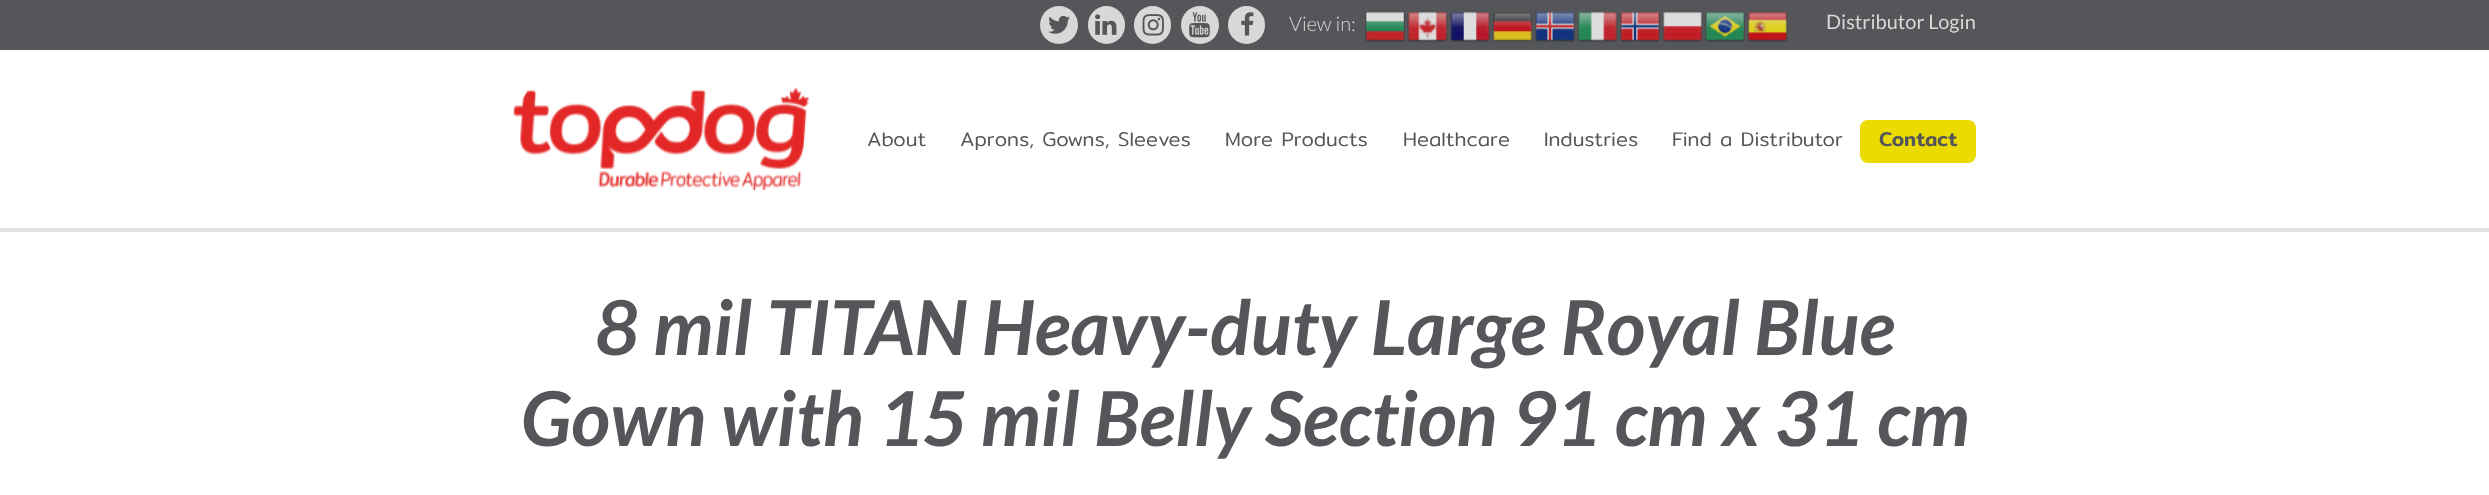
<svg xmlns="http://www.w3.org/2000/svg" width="2489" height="495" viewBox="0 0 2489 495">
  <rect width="100%" height="100%" fill="#ffffff"/>
  <rect x="0" y="0" width="2489" height="50" fill="#54565a"/>
  <circle cx="1059" cy="25" r="19" fill="#d9d8d6"/>
  <image x="1048" y="15" width="22" height="19" href="img1.png"/>
  <rect x="1088" y="6" width="37" height="38" rx="18.5" fill="#d9d8d6"/>
  <image x="1095" y="14" width="22" height="21" href="img2.png"/>
  <rect x="1134" y="6" width="37" height="38" rx="18.5" fill="#d9d8d6"/>
  <image x="1142" y="14" width="22" height="22" href="img3.png"/>
  <circle cx="1200" cy="25" r="19" fill="#d9d8d6"/>
  <image x="1189" y="12" width="21" height="26" href="img4.png"/>
  <rect x="1228" y="6" width="37" height="38" rx="18.5" fill="#d9d8d6"/>
  <image x="1241" y="12" width="13" height="24" href="img5.png"/>
  <text x="1289" y="31" font-family="Lato" font-size="20" font-weight="300" fill="#d9d8d6">View in:</text>
  <image x="1365" y="12" width="40" height="30" href="img6.png"/>
  <image x="1407" y="12" width="41" height="30" href="img7.png"/>
  <image x="1450" y="12" width="40" height="30" href="img8.png"/>
  <image x="1492" y="12" width="41" height="30" href="img9.png"/>
  <image x="1535" y="12" width="40" height="30" href="img10.png"/>
  <image x="1577" y="12" width="41" height="30" href="img11.png"/>
  <image x="1620" y="12" width="40" height="30" href="img12.png"/>
  <image x="1662" y="12" width="41" height="30" href="img13.png"/>
  <image x="1705" y="12" width="40" height="30" href="img14.png"/>
  <image x="1747" y="12" width="41" height="30" href="img15.png"/>
  <text x="1826" y="29" font-family="Lato" font-size="20" fill="#d9d8d6">Distributor Login</text>
  <image x="513" y="88" width="296" height="102" href="img16.png"/>
  <text x="867" y="146" font-family="Mitr" font-size="20" font-weight="300" fill="#54565a">About</text>
  <text x="960" y="146" font-family="Mitr" font-size="20" font-weight="300" fill="#54565a">Aprons, Gowns, Sleeves</text>
  <text x="1225" y="146" font-family="Mitr" font-size="20" font-weight="300" fill="#54565a">More Products</text>
  <text x="1403" y="146" font-family="Mitr" font-size="20" font-weight="300" fill="#54565a">Healthcare</text>
  <text x="1544" y="146" font-family="Mitr" font-size="20" font-weight="300" fill="#54565a">Industries</text>
  <text x="1672" y="146" font-family="Mitr" font-size="20" font-weight="300" fill="#54565a">Find a Distributor</text>
  <rect x="1860" y="120" width="116" height="43" rx="8" fill="#ecdb00"/>
  <text x="1879" y="146" font-family="Mitr" font-size="20" font-weight="500" fill="#54565a">Contact</text>
  <rect x="0" y="228" width="2489" height="4" fill="#e3e2e1"/>
  <text x="595" y="355" font-family="Lato" font-size="75.75" font-weight="bold" font-style="italic" fill="#54565a">8 mil TITAN Heavy-duty Large Royal Blue</text>
  <text x="521" y="446" font-family="Lato" font-size="75.75" font-weight="bold" font-style="italic" fill="#54565a">Gown with 15 mil Belly Section 91 cm x 31 cm</text>
</svg>
